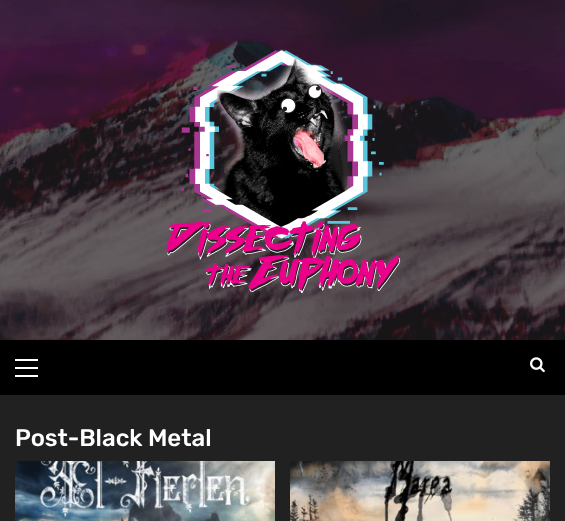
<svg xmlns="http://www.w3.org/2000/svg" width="565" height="521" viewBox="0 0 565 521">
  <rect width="100%" height="100%" fill="#212121"/>
  <image x="0" y="0" width="565" height="340" href="img1.png"/>
  <image x="166" y="49" width="235" height="244" href="img2.png"/>
  <rect x="0" y="340" width="565" height="55" fill="#000000"/>
  <rect x="15" y="367" width="23" height="2" fill="#ffffff"/>
  <rect x="15" y="359" width="23" height="2" fill="#ffffff"/>
  <rect x="15" y="375" width="23" height="2" fill="#ffffff"/>
  <image x="530" y="357" width="15" height="16" href="img3.png"/>
  <text x="15" y="446" font-family="Rubik" font-size="24" font-weight="500" fill="#ffffff">Post-Black Metal</text>
  <image x="15" y="461" width="260" height="60" href="img4.png"/>
  <image x="290" y="461" width="260" height="60" href="img5.png"/>
</svg>
